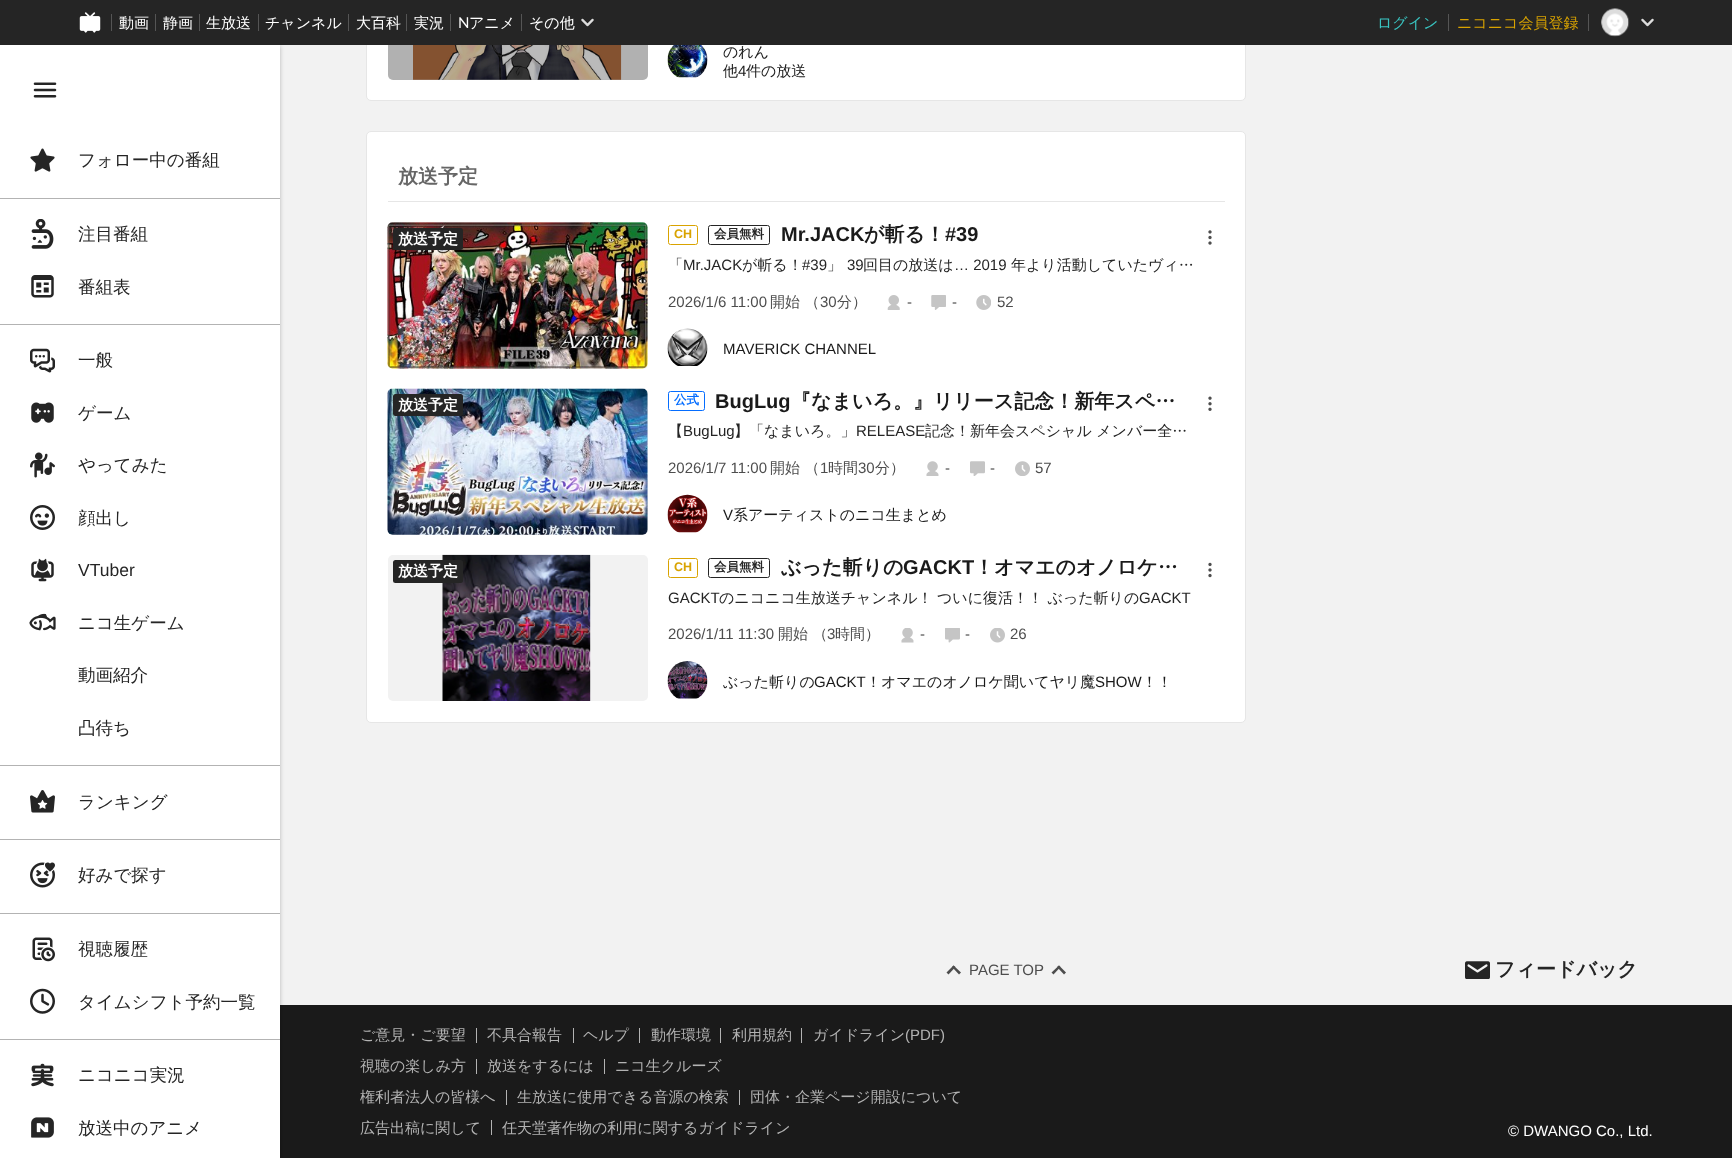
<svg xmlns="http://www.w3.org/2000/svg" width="1732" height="1158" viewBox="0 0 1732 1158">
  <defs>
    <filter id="blur1" x="-50%" y="-200%" width="200%" height="500%"><feGaussianBlur stdDeviation="2"/></filter>
  </defs>
  <rect width="100%" height="100%" fill="#f2f2f2"/>
  <rect x="280" y="1005" width="1452" height="153" fill="#1a1a1a"/>
  <rect x="0" y="46" width="280" height="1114" fill="#1a1a1a" fill-opacity="0.25" filter="url(#blur1)"/>
  <rect x="366.5" y="-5.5" width="879" height="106" rx="4.5" fill="#ffffff" stroke="#e6e6e6"/>
  <rect x="388" y="-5" width="260" height="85" rx="5" fill="#f2f2f2"/>
  <image x="413" y="45" width="209" height="35" href="img20.png"/>
  <rect x="388" y="-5" width="260" height="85" rx="5" fill="#1a1a1a" fill-opacity="0.3"/>
  <rect x="0" y="0" width="1732" height="45" fill="#252525"/>
  <image x="79" y="12" width="22" height="21" href="img1.png"/>
  <rect x="111" y="14" width="1" height="17" fill="#555555"/>
  <text x="119" y="28" font-family="WenQuanYi Zen Hei" font-size="15" font-weight="500" fill="#ffffff">動画</text>
  <rect x="155" y="14" width="1" height="17" fill="#555555"/>
  <text x="163" y="28" font-family="WenQuanYi Zen Hei" font-size="15" font-weight="500" fill="#ffffff">静画</text>
  <rect x="199" y="14" width="1" height="17" fill="#555555"/>
  <text x="206" y="28" font-family="WenQuanYi Zen Hei" font-size="15" font-weight="500" fill="#ffffff">生放送</text>
  <rect x="258" y="14" width="1" height="17" fill="#555555"/>
  <text x="265" y="28" font-family="WenQuanYi Zen Hei" font-size="15" font-weight="500" fill="#ffffff">チャンネル</text>
  <rect x="348" y="14" width="1" height="17" fill="#555555"/>
  <text x="356" y="28" font-family="WenQuanYi Zen Hei" font-size="15" font-weight="500" fill="#ffffff">大百科</text>
  <rect x="406" y="14" width="1" height="17" fill="#555555"/>
  <text x="414" y="28" font-family="WenQuanYi Zen Hei" font-size="15" font-weight="500" fill="#ffffff">実況</text>
  <rect x="450" y="14" width="1" height="17" fill="#555555"/>
  <text x="458" y="28" font-family="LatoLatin" font-size="15" fill="#ffffff">N</text>
  <text x="469" y="28" font-family="WenQuanYi Zen Hei" font-size="15" font-weight="500" fill="#ffffff">アニメ</text>
  <rect x="521" y="14" width="1" height="17" fill="#555555"/>
  <text x="529" y="28" font-family="WenQuanYi Zen Hei" font-size="15" font-weight="500" fill="#ffffff">その他</text>
  <image x="581" y="18" width="13" height="9" href="img2.png"/>
  <text x="1377" y="28" font-family="WenQuanYi Zen Hei" font-size="15" font-weight="500" fill="#39c4c1">ログイン</text>
  <rect x="1448" y="14" width="1" height="17" fill="#555555"/>
  <text x="1457" y="28" font-family="WenQuanYi Zen Hei" font-size="15" font-weight="500" fill="#d9a300">ニコニコ会員登録</text>
  <rect x="1588" y="14" width="1" height="17" fill="#555555"/>
  <image x="1601" y="8" width="29" height="29" href="img3.png"/>
  <image x="1641" y="18" width="13" height="9" href="img2.png"/>
  <rect x="0" y="45" width="280" height="1113" fill="#ffffff"/>
  <image x="33" y="82" width="24" height="16" href="img4.png"/>
  <image x="30" y="148" width="25" height="24" href="img5.png"/>
  <text x="78" y="166" font-family="WenQuanYi Zen Hei" font-size="17.5" font-weight="500" fill="#252525">フォロー中の番組</text>
  <rect x="0" y="198" width="280" height="1" fill="#b3b3b3"/>
  <image x="31" y="219" width="23" height="30" href="img6.png"/>
  <text x="78" y="240" font-family="WenQuanYi Zen Hei" font-size="17.5" font-weight="500" fill="#252525">注目番組</text>
  <image x="31" y="275" width="23" height="23" href="img7.png"/>
  <text x="78" y="293" font-family="WenQuanYi Zen Hei" font-size="17.5" font-weight="500" fill="#252525">番組表</text>
  <rect x="0" y="324" width="280" height="1" fill="#b3b3b3"/>
  <image x="30" y="348" width="25" height="25" href="img8.png"/>
  <text x="78" y="366" font-family="WenQuanYi Zen Hei" font-size="17.5" font-weight="500" fill="#252525">一般</text>
  <image x="31" y="402" width="23" height="21" href="img9.png"/>
  <text x="78" y="419" font-family="WenQuanYi Zen Hei" font-size="17.5" font-weight="500" fill="#252525">ゲーム</text>
  <image x="30" y="452" width="25" height="26" href="img10.png"/>
  <text x="78" y="471" font-family="WenQuanYi Zen Hei" font-size="17.5" font-weight="500" fill="#252525">やってみた</text>
  <image x="30" y="505" width="25" height="25" href="img11.png"/>
  <text x="78" y="524" font-family="WenQuanYi Zen Hei" font-size="17.5" font-weight="500" fill="#252525">顔出し</text>
  <image x="31" y="558" width="23" height="24" href="img12.png"/>
  <text x="78" y="576" font-family="Liberation Sans" font-size="17.5" fill="#252525">VTuber</text>
  <image x="29" y="613" width="27" height="18" href="img13.png"/>
  <text x="78" y="629" font-family="WenQuanYi Zen Hei" font-size="17.5" font-weight="500" fill="#252525">ニコ生ゲーム</text>
  <text x="78" y="681" font-family="WenQuanYi Zen Hei" font-size="17.5" font-weight="500" fill="#252525">動画紹介</text>
  <text x="78" y="734" font-family="WenQuanYi Zen Hei" font-size="17.5" font-weight="500" fill="#252525">凸待ち</text>
  <rect x="0" y="765" width="280" height="1" fill="#b3b3b3"/>
  <image x="30" y="790" width="25" height="23" href="img14.png"/>
  <text x="78" y="808" font-family="WenQuanYi Zen Hei" font-size="17.5" font-weight="500" fill="#252525">ランキング</text>
  <rect x="0" y="839" width="280" height="1" fill="#b3b3b3"/>
  <image x="30" y="862" width="25" height="26" href="img15.png"/>
  <text x="78" y="881" font-family="WenQuanYi Zen Hei" font-size="17.5" font-weight="500" fill="#252525">好みで探す</text>
  <rect x="0" y="913" width="280" height="1" fill="#b3b3b3"/>
  <image x="32" y="937" width="23" height="25" href="img16.png"/>
  <text x="78" y="955" font-family="WenQuanYi Zen Hei" font-size="17.5" font-weight="500" fill="#252525">視聴履歴</text>
  <image x="30" y="988" width="25" height="26" href="img17.png"/>
  <text x="78" y="1008" font-family="WenQuanYi Zen Hei" font-size="17.5" font-weight="500" fill="#252525">タイムシフト予約一覧</text>
  <rect x="0" y="1039" width="280" height="1" fill="#b3b3b3"/>
  <image x="31" y="1063" width="23" height="24" href="img18.png"/>
  <text x="78" y="1081" font-family="WenQuanYi Zen Hei" font-size="17.5" font-weight="500" fill="#252525">ニコニコ実況</text>
  <image x="31" y="1117" width="23" height="21" href="img19.png"/>
  <text x="78" y="1134" font-family="WenQuanYi Zen Hei" font-size="17.5" font-weight="500" fill="#252525">放送中のアニメ</text>
  <image x="667" y="45" width="41" height="33" href="img21.png"/>
  <text x="723" y="57" font-family="WenQuanYi Zen Hei" font-size="15" font-weight="500" fill="#1a1a1a">のれん</text>
  <text x="723" y="76" font-family="WenQuanYi Zen Hei" font-size="15" font-weight="500" fill="#1a1a1a">他</text>
  <text x="738" y="76" font-family="Liberation Sans" font-size="15" fill="#1a1a1a">4</text>
  <text x="746" y="76" font-family="WenQuanYi Zen Hei" font-size="15" font-weight="500" fill="#1a1a1a">件の放送</text>
  <rect x="366.5" y="131.5" width="879" height="591" rx="4.5" fill="#ffffff" stroke="#e6e6e6"/>
  <rect x="388" y="201" width="837" height="1" fill="#e6e6e6"/>
  <text x="398" y="183" font-family="WenQuanYi Zen Hei" font-size="20" font-weight="bold" fill="#666666">放送予定</text>
  <rect x="388" y="223" width="260" height="146" rx="5" fill="#f2f2f2"/>
  <image x="387" y="222" width="261" height="147" href="img22.png"/>
  <rect x="393" y="228" width="70" height="22" rx="2.5" fill="#252525"/>
  <text x="398" y="244" font-family="WenQuanYi Zen Hei" font-size="15" font-weight="bold" fill="#ffffff">放送予定</text>
  <rect x="668.5" y="225.5" width="29" height="19" rx="2" fill="none" stroke="#d9a300"/>
  <text x="674" y="238" font-family="Liberation Sans" font-size="12.5" font-weight="bold" fill="#d9a300">CH</text>
  <rect x="708.5" y="225.5" width="61" height="19" rx="2" fill="none" stroke="#252525"/>
  <text x="714" y="238" font-family="WenQuanYi Zen Hei" font-size="12.5" font-weight="bold" fill="#252525">会員無料</text>
  <text x="781" y="241" font-family="Liberation Sans" font-size="20" font-weight="bold" fill="#1a1a1a">Mr.JACK</text>
  <text x="864" y="241" font-family="WenQuanYi Zen Hei" font-size="20" font-weight="bold" fill="#1a1a1a">が斬る！</text>
  <text x="945" y="241" font-family="Liberation Sans" font-size="20" font-weight="bold" fill="#1a1a1a">#39</text>
  <text x="668" y="270" font-family="WenQuanYi Zen Hei" font-size="15" font-weight="500" fill="#252525">「</text>
  <text x="683" y="270" font-family="Liberation Sans" font-size="15" fill="#252525">Mr.JACK</text>
  <text x="742" y="270" font-family="WenQuanYi Zen Hei" font-size="15" font-weight="500" fill="#252525">が斬る！</text>
  <text x="802" y="270" font-family="Liberation Sans" font-size="15" fill="#252525">#39</text>
  <text x="827" y="270" font-family="WenQuanYi Zen Hei" font-size="15" font-weight="500" fill="#252525">」</text>
  <text x="847" y="270" font-family="Liberation Sans" font-size="15" fill="#252525">39</text>
  <text x="863" y="270" font-family="WenQuanYi Zen Hei" font-size="15" font-weight="500" fill="#252525">回目の放送は</text>
  <text x="954" y="270" font-family="Liberation Sans" font-size="15" fill="#252525">… 2019</text>
  <text x="1011" y="270" font-family="WenQuanYi Zen Hei" font-size="15" font-weight="500" fill="#252525">年より活動していたヴィ…</text>
  <text x="668" y="307" font-family="Liberation Sans" font-size="15" fill="#4d4d4d">2026/1/6 11:00</text>
  <text x="770" y="307" font-family="WenQuanYi Zen Hei" font-size="15" font-weight="500" fill="#4d4d4d">開始 （</text>
  <text x="820" y="307" font-family="Liberation Sans" font-size="15" fill="#4d4d4d">30</text>
  <text x="837" y="307" font-family="WenQuanYi Zen Hei" font-size="15" font-weight="500" fill="#4d4d4d">分）</text>
  <image x="887" y="295" width="13" height="15" href="img23.png"/>
  <text x="907" y="307" font-family="Liberation Sans" font-size="15" fill="#4d4d4d">-</text>
  <image x="931" y="295" width="15" height="15" href="img24.png"/>
  <text x="952" y="307" font-family="Liberation Sans" font-size="15" fill="#4d4d4d">-</text>
  <image x="976" y="295" width="15" height="15" href="img25.png"/>
  <text x="997" y="307" font-family="Liberation Sans" font-size="15" fill="#4d4d4d">52</text>
  <image x="667" y="328" width="41" height="38" href="img26.png"/>
  <text x="723" y="354" font-family="Liberation Sans" font-size="15" fill="#1a1a1a">MAVERICK CHANNEL</text>
  <image x="1208" y="230" width="4" height="15" href="img27.png"/>
  <rect x="388" y="389" width="260" height="146" rx="5" fill="#f2f2f2"/>
  <image x="387" y="388" width="261" height="147" href="img28.png"/>
  <rect x="393" y="394" width="70" height="22" rx="2.5" fill="#252525"/>
  <text x="398" y="410" font-family="WenQuanYi Zen Hei" font-size="15" font-weight="bold" fill="#ffffff">放送予定</text>
  <rect x="668.5" y="391.5" width="36" height="19" rx="2" fill="none" stroke="#056dff"/>
  <text x="674" y="404" font-family="WenQuanYi Zen Hei" font-size="12.5" font-weight="bold" fill="#056dff">公式</text>
  <text x="715" y="408" font-family="Liberation Sans" font-size="20" font-weight="bold" fill="#1a1a1a">BugLug</text>
  <text x="791" y="408" font-family="WenQuanYi Zen Hei" font-size="20" font-weight="bold" fill="#1a1a1a">『なまいろ。』リリース記念！新年スペ…</text>
  <text x="668" y="436" font-family="WenQuanYi Zen Hei" font-size="15" font-weight="500" fill="#252525">【</text>
  <text x="683" y="436" font-family="Liberation Sans" font-size="15" fill="#252525">BugLug</text>
  <text x="734" y="436" font-family="WenQuanYi Zen Hei" font-size="15" font-weight="500" fill="#252525">】「なまいろ。」</text>
  <text x="856" y="436" font-family="Liberation Sans" font-size="15" fill="#252525">RELEASE</text>
  <text x="925" y="436" font-family="WenQuanYi Zen Hei" font-size="15" font-weight="500" fill="#252525">記念！新年会スペシャル メンバー全…</text>
  <text x="668" y="473" font-family="Liberation Sans" font-size="15" fill="#4d4d4d">2026/1/7 11:00</text>
  <text x="770" y="473" font-family="WenQuanYi Zen Hei" font-size="15" font-weight="500" fill="#4d4d4d">開始 （</text>
  <text x="820" y="473" font-family="Liberation Sans" font-size="15" fill="#4d4d4d">1</text>
  <text x="828" y="473" font-family="WenQuanYi Zen Hei" font-size="15" font-weight="500" fill="#4d4d4d">時間</text>
  <text x="858" y="473" font-family="Liberation Sans" font-size="15" fill="#4d4d4d">30</text>
  <text x="875" y="473" font-family="WenQuanYi Zen Hei" font-size="15" font-weight="500" fill="#4d4d4d">分）</text>
  <image x="926" y="461" width="13" height="15" href="img29.png"/>
  <text x="945" y="473" font-family="Liberation Sans" font-size="15" fill="#4d4d4d">-</text>
  <image x="970" y="461" width="15" height="15" href="img30.png"/>
  <text x="990" y="473" font-family="Liberation Sans" font-size="15" fill="#4d4d4d">-</text>
  <image x="1015" y="461" width="15" height="15" href="img31.png"/>
  <text x="1035" y="473" font-family="Liberation Sans" font-size="15" fill="#4d4d4d">57</text>
  <image x="667" y="494" width="41" height="39" href="img32.png"/>
  <text x="723" y="520" font-family="Liberation Sans" font-size="15" fill="#1a1a1a">V</text>
  <text x="733" y="520" font-family="WenQuanYi Zen Hei" font-size="15" font-weight="500" fill="#1a1a1a">系アーティストのニコ生まとめ</text>
  <image x="1208" y="396" width="4" height="15" href="img33.png"/>
  <rect x="388" y="555" width="260" height="146" rx="5" fill="#f2f2f2"/>
  <image x="442" y="554" width="149" height="147" href="img34.png"/>
  <rect x="393" y="560" width="70" height="23" rx="2.5" fill="#252525"/>
  <text x="398" y="576" font-family="WenQuanYi Zen Hei" font-size="15" font-weight="bold" fill="#ffffff">放送予定</text>
  <rect x="668.5" y="558.5" width="29" height="19" rx="2" fill="none" stroke="#d9a300"/>
  <text x="674" y="571" font-family="Liberation Sans" font-size="12.5" font-weight="bold" fill="#d9a300">CH</text>
  <rect x="708.5" y="558.5" width="61" height="19" rx="2" fill="none" stroke="#252525"/>
  <text x="714" y="571" font-family="WenQuanYi Zen Hei" font-size="12.5" font-weight="bold" fill="#252525">会員無料</text>
  <text x="781" y="574" font-family="WenQuanYi Zen Hei" font-size="20" font-weight="bold" fill="#1a1a1a">ぶった斬りの</text>
  <text x="903" y="574" font-family="Liberation Sans" font-size="20" font-weight="bold" fill="#1a1a1a">GACKT</text>
  <text x="974" y="574" font-family="WenQuanYi Zen Hei" font-size="20" font-weight="bold" fill="#1a1a1a">！オマエのオノロケ…</text>
  <text x="668" y="603" font-family="Liberation Sans" font-size="15" fill="#252525">GACKT</text>
  <text x="719" y="603" font-family="WenQuanYi Zen Hei" font-size="15" font-weight="500" fill="#252525">のニコニコ生放送チャンネル！ ついに復活！！ ぶった斬りの</text>
  <text x="1139" y="603" font-family="Liberation Sans" font-size="15" fill="#252525">GACKT</text>
  <text x="668" y="639" font-family="Liberation Sans" font-size="15" fill="#4d4d4d">2026/1/11 11:30</text>
  <text x="778" y="639" font-family="WenQuanYi Zen Hei" font-size="15" font-weight="500" fill="#4d4d4d">開始 （</text>
  <text x="827" y="639" font-family="Liberation Sans" font-size="15" fill="#4d4d4d">3</text>
  <text x="835" y="639" font-family="WenQuanYi Zen Hei" font-size="15" font-weight="500" fill="#4d4d4d">時間）</text>
  <image x="901" y="628" width="13" height="15" href="img35.png"/>
  <text x="920" y="639" font-family="Liberation Sans" font-size="15" fill="#4d4d4d">-</text>
  <image x="945" y="628" width="15" height="15" href="img36.png"/>
  <text x="965" y="639" font-family="Liberation Sans" font-size="15" fill="#4d4d4d">-</text>
  <image x="990" y="628" width="15" height="15" href="img37.png"/>
  <text x="1010" y="639" font-family="Liberation Sans" font-size="15" fill="#4d4d4d">26</text>
  <image x="667" y="661" width="41" height="38" href="img38.png"/>
  <text x="723" y="687" font-family="WenQuanYi Zen Hei" font-size="15" font-weight="500" fill="#1a1a1a">ぶった斬りの</text>
  <text x="814" y="687" font-family="Liberation Sans" font-size="15" fill="#1a1a1a">GACKT</text>
  <text x="866" y="687" font-family="WenQuanYi Zen Hei" font-size="15" font-weight="500" fill="#1a1a1a">！オマエのオノロケ聞いてヤリ魔</text>
  <text x="1095" y="687" font-family="Liberation Sans" font-size="15" fill="#1a1a1a">SHOW</text>
  <text x="1142" y="687" font-family="WenQuanYi Zen Hei" font-size="15" font-weight="500" fill="#1a1a1a">！！</text>
  <image x="1208" y="562" width="4" height="16" href="img39.png"/>
  <path d="M953.5 965.5L961 972.5L959 974.5L952 967Z" fill="#4d4d4d"/>
  <path d="M953.5 965.5L955.5 967L948.5 974.5L946.5 972.5Z" fill="#4d4d4d"/>
  <text x="969" y="975" font-family="Liberation Sans" font-size="15" fill="#4d4d4d">PAGE TOP</text>
  <path d="M1059 965.5L1066 972.5L1064 974.5L1057 967Z" fill="#4d4d4d"/>
  <path d="M1059 965.5L1060.5 967L1053.5 974.5L1051.5 972.5Z" fill="#4d4d4d"/>
  <image x="1465" y="961" width="25" height="18" href="img40.png"/>
  <text x="1495" y="976" font-family="WenQuanYi Zen Hei" font-size="20" font-weight="bold" fill="#252525">フィードバック</text>
  <text x="360" y="1040" font-family="WenQuanYi Zen Hei" font-size="15" font-weight="500" fill="#b3b3b3">ご意見・ご要望</text>
  <rect x="476" y="1028" width="1" height="15" fill="#b3b3b3"/>
  <text x="487" y="1040" font-family="WenQuanYi Zen Hei" font-size="15" font-weight="500" fill="#b3b3b3">不具合報告</text>
  <rect x="573" y="1028" width="1" height="15" fill="#b3b3b3"/>
  <text x="583" y="1040" font-family="WenQuanYi Zen Hei" font-size="15" font-weight="500" fill="#b3b3b3">ヘルプ</text>
  <rect x="639" y="1028" width="1" height="15" fill="#b3b3b3"/>
  <text x="651" y="1040" font-family="WenQuanYi Zen Hei" font-size="15" font-weight="500" fill="#b3b3b3">動作環境</text>
  <rect x="720" y="1028" width="1" height="15" fill="#b3b3b3"/>
  <text x="732" y="1040" font-family="WenQuanYi Zen Hei" font-size="15" font-weight="500" fill="#b3b3b3">利用規約</text>
  <rect x="801" y="1028" width="1" height="15" fill="#b3b3b3"/>
  <text x="813" y="1040" font-family="WenQuanYi Zen Hei" font-size="15" font-weight="500" fill="#b3b3b3">ガイドライン</text>
  <text x="905" y="1040" font-family="Liberation Sans" font-size="15" fill="#b3b3b3">(PDF)</text>
  <text x="360" y="1071" font-family="WenQuanYi Zen Hei" font-size="15" font-weight="500" fill="#b3b3b3">視聴の楽しみ方</text>
  <rect x="476" y="1059" width="1" height="15" fill="#b3b3b3"/>
  <text x="487" y="1071" font-family="WenQuanYi Zen Hei" font-size="15" font-weight="500" fill="#b3b3b3">放送をするには</text>
  <rect x="604" y="1059" width="1" height="15" fill="#b3b3b3"/>
  <text x="615" y="1071" font-family="WenQuanYi Zen Hei" font-size="15" font-weight="500" fill="#b3b3b3">ニコ生クルーズ</text>
  <text x="360" y="1102" font-family="WenQuanYi Zen Hei" font-size="15" font-weight="500" fill="#b3b3b3">権利者法人の皆様へ</text>
  <rect x="506" y="1090" width="1" height="15" fill="#b3b3b3"/>
  <text x="517" y="1102" font-family="WenQuanYi Zen Hei" font-size="15" font-weight="500" fill="#b3b3b3">生放送に使用できる音源の検索</text>
  <rect x="739" y="1090" width="1" height="15" fill="#b3b3b3"/>
  <text x="750" y="1102" font-family="WenQuanYi Zen Hei" font-size="15" font-weight="500" fill="#b3b3b3">団体・企業ページ開設について</text>
  <text x="360" y="1133" font-family="WenQuanYi Zen Hei" font-size="15" font-weight="500" fill="#b3b3b3">広告出稿に関して</text>
  <rect x="491" y="1120" width="1" height="15" fill="#b3b3b3"/>
  <text x="502" y="1133" font-family="WenQuanYi Zen Hei" font-size="15" font-weight="500" fill="#b3b3b3">任天堂著作物の利用に関するガイドライン</text>
  <text x="1508" y="1136" font-family="Liberation Sans" font-size="15" fill="#ffffff">© DWANGO Co., Ltd.</text>
</svg>
